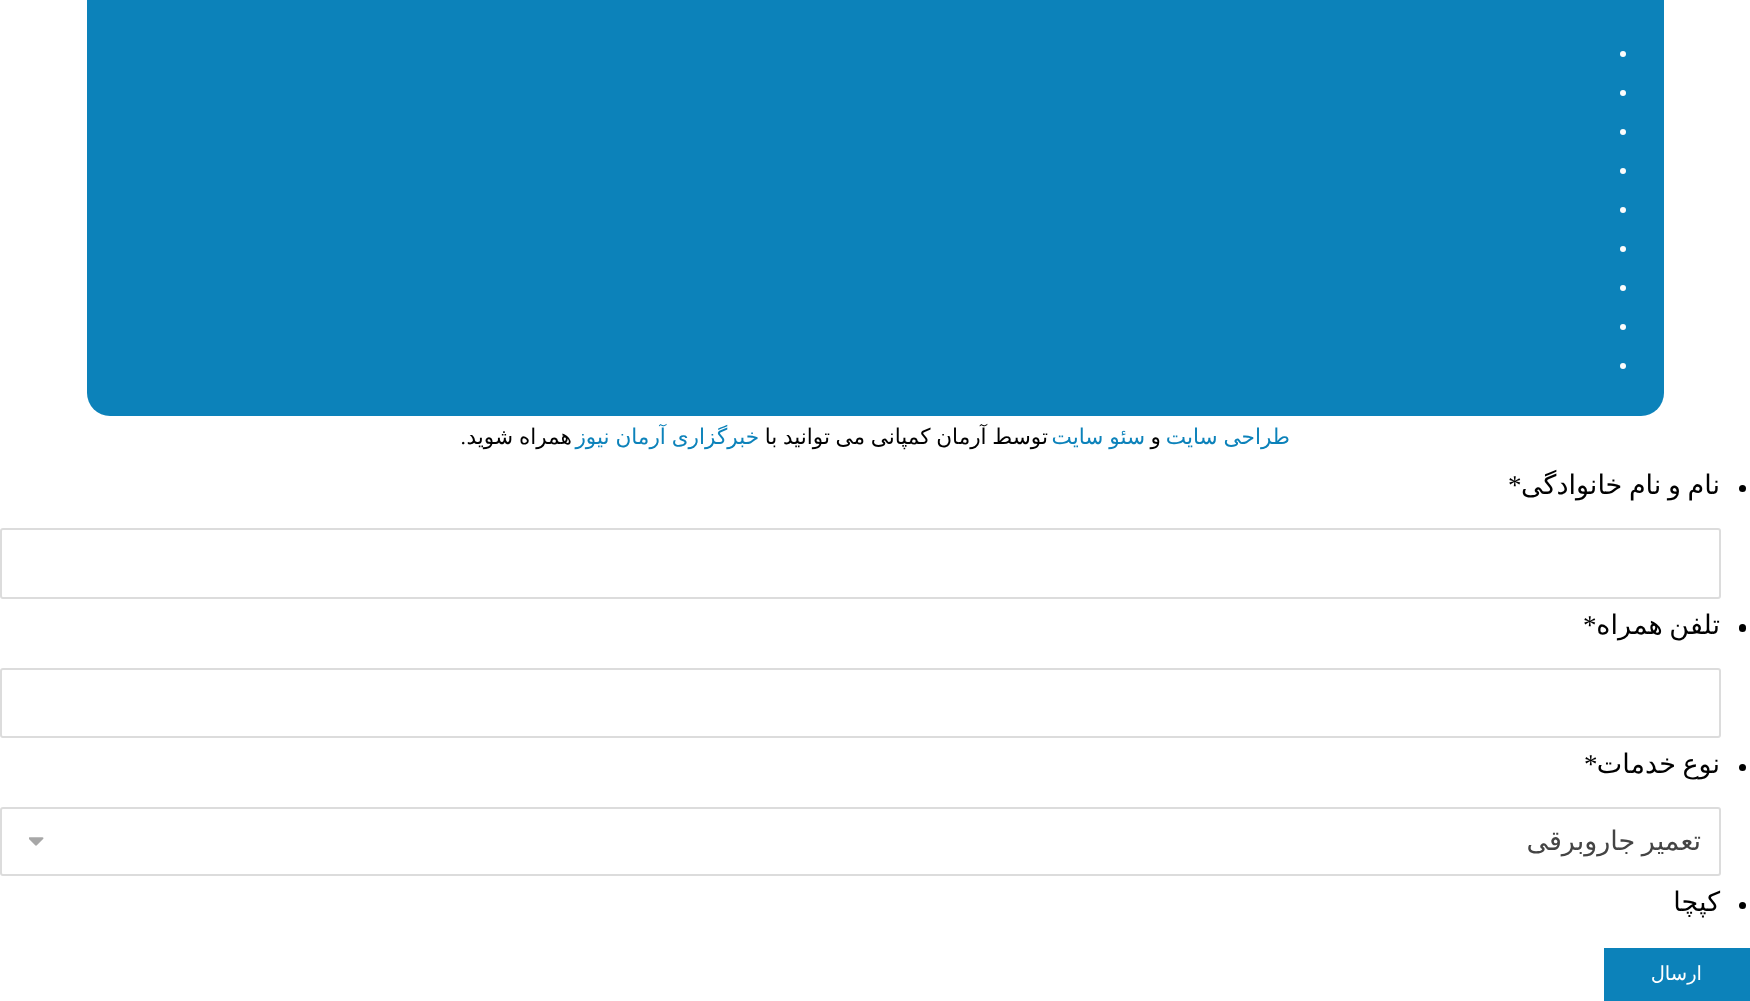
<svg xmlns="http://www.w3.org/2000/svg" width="1750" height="1001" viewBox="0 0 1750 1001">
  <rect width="100%" height="100%" fill="#ffffff"/>
  <rect x="87" y="-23" width="1577" height="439" rx="23" fill="#0c82ba"/>
  <circle cx="1623" cy="54" r="3" fill="#fcfcfc"/>
  <circle cx="1623" cy="93" r="3" fill="#fcfcfc"/>
  <circle cx="1623" cy="132" r="3" fill="#fcfcfc"/>
  <circle cx="1623" cy="171" r="3" fill="#fcfcfc"/>
  <circle cx="1623" cy="210" r="3" fill="#fcfcfc"/>
  <circle cx="1623" cy="249" r="3" fill="#fcfcfc"/>
  <circle cx="1623" cy="288" r="3" fill="#fcfcfc"/>
  <circle cx="1623" cy="327" r="3" fill="#fcfcfc"/>
  <circle cx="1623" cy="366" r="3" fill="#fcfcfc"/>
  <text x="1290" y="444" word-spacing="-1" font-family="DejaVu Sans" font-size="21.6" direction="rtl" fill="#0c82ba">طراحی سایت</text>
  <text x="1161" y="444" font-family="DejaVu Sans" font-size="21.6" direction="rtl" fill="#000000">و</text>
  <text x="1145" y="444" word-spacing="-1" font-family="DejaVu Sans" font-size="21.6" direction="rtl" fill="#0c82ba">سئو سایت</text>
  <text x="1048" y="444" word-spacing="-1.25" font-family="DejaVu Sans" font-size="21.6" direction="rtl" fill="#000000">توسط آرمان کمپانی می توانید با</text>
  <text x="759" y="444" word-spacing="-1" font-family="DejaVu Sans" font-size="21.6" direction="rtl" fill="#0c82ba">خبرگزاری آرمان نیوز</text>
  <text x="572" y="444" word-spacing="-1" font-family="DejaVu Sans" font-size="21.6" direction="rtl" fill="#000000">همراه شوید</text>
  <text x="466" y="444" font-family="Liberation Serif" font-size="21.6" direction="rtl" fill="#000000">.</text>
  <circle cx="1742.5" cy="488.5" r="3.5" fill="#000000"/>
  <text x="1720" y="494" word-spacing="-2" font-family="DejaVu Sans" font-size="27" direction="rtl" fill="#000000">نام و نام خانوادگی</text>
  <text x="1508" y="494" font-family="Liberation Serif" font-size="27" fill="#000000">*</text>
  <rect x="1" y="529" width="1719" height="69" rx="2" fill="none" stroke="#dcdcdc" stroke-width="2"/>
  <rect x="1739" y="624" width="7" height="8" rx="3.5" fill="#000000"/>
  <text x="1720" y="634" word-spacing="-2" font-family="DejaVu Sans" font-size="27" direction="rtl" fill="#000000">تلفن همراه</text>
  <text x="1583" y="634" font-family="Liberation Serif" font-size="27" fill="#000000">*</text>
  <rect x="1" y="669" width="1719" height="68" rx="2" fill="none" stroke="#dcdcdc" stroke-width="2"/>
  <circle cx="1742.5" cy="767.5" r="3.5" fill="#000000"/>
  <text x="1720" y="773" word-spacing="-2" font-family="DejaVu Sans" font-size="27" direction="rtl" fill="#000000">نوع خدمات</text>
  <text x="1584" y="773" font-family="Liberation Serif" font-size="27" fill="#000000">*</text>
  <image x="29" y="837" width="15" height="9" href="img1.png"/>
  <rect x="1" y="808" width="1719" height="67" rx="2" fill="none" stroke="#dcdcdc" stroke-width="2"/>
  <text x="1701" y="850" word-spacing="-2" font-family="DejaVu Sans" font-size="27" direction="rtl" fill="#444444">تعمیر جاروبرقی</text>
  <circle cx="1742.5" cy="905.5" r="3.5" fill="#000000"/>
  <text x="1720" y="911" font-family="DejaVu Sans" font-size="27" direction="rtl" fill="#000000">کپچا</text>
  <rect x="1604" y="948" width="146" height="53" fill="#0c82ba"/>
  <text x="1702" y="980" font-family="DejaVu Sans" font-size="19.5" direction="rtl" fill="#ffffff">ارسال</text>
</svg>
